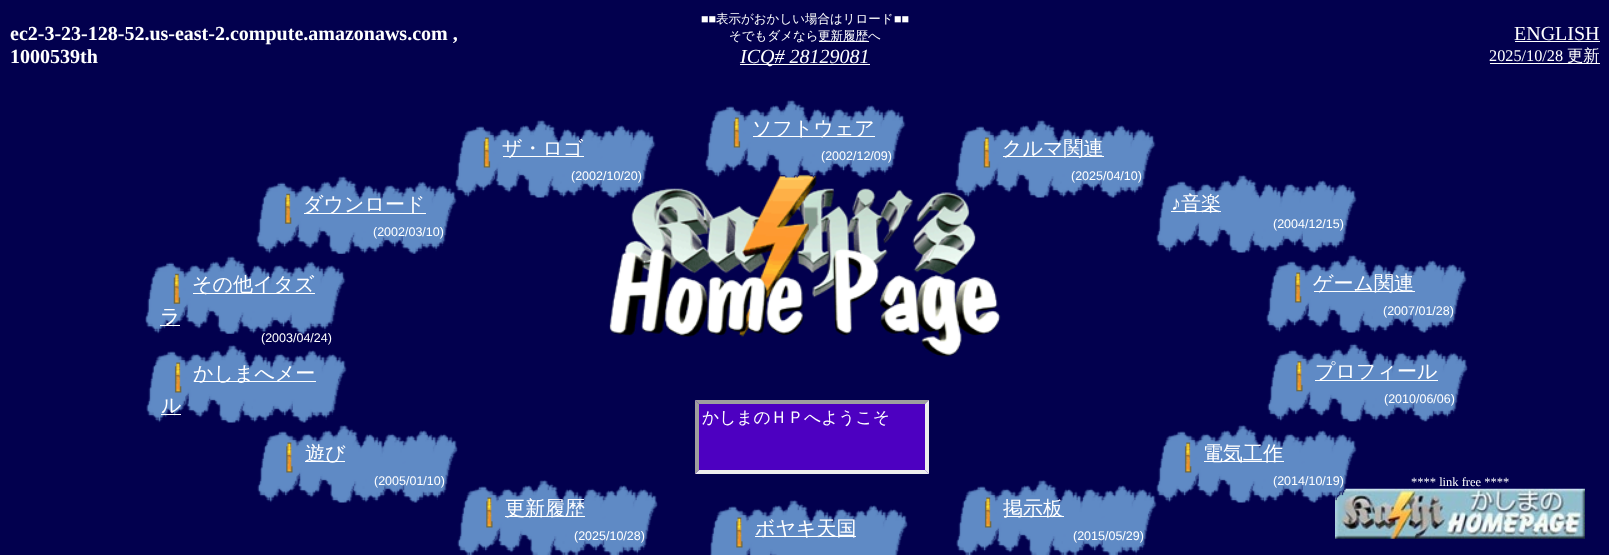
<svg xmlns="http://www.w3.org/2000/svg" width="1609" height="555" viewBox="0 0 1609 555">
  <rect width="100%" height="100%" fill="#02004e"/>
  <text x="10" y="40" font-family="Liberation Serif" font-size="20" font-weight="bold" fill="#ffffff">ec2-3-23-128-52.us-east-2.compute.amazonaws.com ,</text>
  <text x="10" y="63" font-family="Liberation Serif" font-size="20" font-weight="bold" fill="#ffffff">1000539th</text>
  <text x="701" y="23" font-family="Liberation Serif" font-size="12.5" fill="#ffffff">■■</text>
  <text x="716" y="23" font-family="WenQuanYi Zen Hei" font-size="12.5" font-weight="500" fill="#ffffff">表示がおかしい場合はリロード</text>
  <text x="894" y="23" font-family="Liberation Serif" font-size="12.5" fill="#ffffff">■■</text>
  <text x="729" y="40" font-family="WenQuanYi Zen Hei" font-size="12.5" font-weight="500" fill="#ffffff">そでもダメなら</text>
  <rect x="819" y="41" width="50" height="1" fill="#ffffff"/>
  <text x="818" y="40" font-family="WenQuanYi Zen Hei" font-size="12.5" font-weight="500" fill="#ffffff">更新履歴へ</text>
  <rect x="740" y="64" width="130" height="1" fill="#ffffff"/>
  <text x="740" y="63" font-family="Liberation Serif" font-size="20" font-style="italic" fill="#ffffff">ICQ# 28129081</text>
  <text x="1514" y="40" font-family="Liberation Serif" font-size="20" fill="#ffffff">ENGLISH</text>
  <rect x="1515" y="41" width="85" height="1" fill="#ffffff"/>
  <text x="1489" y="61" font-family="Liberation Serif" font-size="16.25" fill="#ffffff">2025/10/28</text>
  <rect x="1490" y="63" width="110" height="1" fill="#ffffff"/>
  <text x="1567" y="61" font-family="WenQuanYi Zen Hei" font-size="16.25" font-weight="500" fill="#ffffff">更新</text>
  <image x="256" y="176" width="201" height="78" href="img5.png"/>
  <image x="609" y="174" width="392" height="183" href="img7.png"/>
  <image x="455" y="120" width="201" height="78" href="img1.png"/>
  <image x="483" y="137" width="8" height="31" href="img2.png"/>
  <rect x="503" y="156" width="81" height="1" fill="#ffffff"/>
  <text x="502" y="155" font-family="WenQuanYi Zen Hei" font-size="20" font-weight="500" fill="#ffffff">ザ・ロゴ</text>
  <text x="571" y="180" font-family="Liberation Sans" font-size="12.5" fill="#ffffff">(2002/10/20)</text>
  <image x="705" y="100" width="201" height="78" href="img3.png"/>
  <image x="733" y="117" width="8" height="31" href="img2.png"/>
  <rect x="753" y="136" width="122" height="1" fill="#ffffff"/>
  <text x="752" y="135" font-family="WenQuanYi Zen Hei" font-size="20" font-weight="500" fill="#ffffff">ソフトウェア</text>
  <text x="821" y="160" font-family="Liberation Sans" font-size="12.5" fill="#ffffff">(2002/12/09)</text>
  <image x="955" y="120" width="201" height="78" href="img4.png"/>
  <image x="983" y="137" width="8" height="31" href="img2.png"/>
  <rect x="1003" y="156" width="101" height="1" fill="#ffffff"/>
  <text x="1002" y="155" font-family="WenQuanYi Zen Hei" font-size="20" font-weight="500" fill="#ffffff">クルマ関連</text>
  <text x="1071" y="180" font-family="Liberation Sans" font-size="12.5" fill="#ffffff">(2025/04/10)</text>
  <image x="284" y="193" width="8" height="31" href="img6.png"/>
  <rect x="304" y="213" width="122" height="1" fill="#ffffff"/>
  <text x="303" y="211" font-family="WenQuanYi Zen Hei" font-size="20" font-weight="500" fill="#ffffff">ダウンロード</text>
  <text x="373" y="236" font-family="Liberation Sans" font-size="12.5" fill="#ffffff">(2002/03/10)</text>
  <image x="1156" y="175" width="201" height="78" href="img8.png"/>
  <text x="1171" y="210" font-family="Liberation Serif" font-size="20" fill="#ffffff">♪</text>
  <rect x="1171" y="211" width="50" height="1" fill="#ffffff"/>
  <text x="1181" y="210" font-family="WenQuanYi Zen Hei" font-size="20" font-weight="500" fill="#ffffff">音楽</text>
  <text x="1273" y="228" font-family="Liberation Sans" font-size="12.5" fill="#ffffff">(2004/12/15)</text>
  <image x="145" y="256" width="201" height="78" href="img9.png"/>
  <image x="173" y="273" width="8" height="31" href="img10.png"/>
  <rect x="193" y="293" width="122" height="1" fill="#ffffff"/>
  <text x="192" y="291" font-family="WenQuanYi Zen Hei" font-size="20" font-weight="500" fill="#ffffff">その他イタズ</text>
  <rect x="160" y="325" width="20" height="1" fill="#ffffff"/>
  <text x="160" y="323" font-family="WenQuanYi Zen Hei" font-size="20" font-weight="500" fill="#ffffff">ラ</text>
  <text x="261" y="342" font-family="Liberation Sans" font-size="12.5" fill="#ffffff">(2003/04/24)</text>
  <image x="1266" y="255" width="201" height="78" href="img8.png"/>
  <image x="1294" y="272" width="8" height="31" href="img11.png"/>
  <rect x="1314" y="291" width="101" height="1" fill="#ffffff"/>
  <text x="1313" y="290" font-family="WenQuanYi Zen Hei" font-size="20" font-weight="500" fill="#ffffff">ゲーム関連</text>
  <text x="1383" y="315" font-family="Liberation Sans" font-size="12.5" fill="#ffffff">(2007/01/28)</text>
  <image x="146" y="345" width="201" height="78" href="img8.png"/>
  <image x="174" y="362" width="8" height="31" href="img11.png"/>
  <rect x="194" y="381" width="122" height="1" fill="#ffffff"/>
  <text x="193" y="380" font-family="WenQuanYi Zen Hei" font-size="20" font-weight="500" fill="#ffffff">かしまへメー</text>
  <text x="161" y="412" font-family="WenQuanYi Zen Hei" font-size="20" font-weight="500" fill="#ffffff">ル</text>
  <rect x="161" y="414" width="20" height="1" fill="#ffffff"/>
  <image x="1267" y="343" width="201" height="79" href="img12.png"/>
  <image x="1296" y="361" width="7" height="31" href="img13.png"/>
  <rect x="1315" y="380" width="123" height="1" fill="#ffffff"/>
  <text x="1315" y="378" font-family="WenQuanYi Zen Hei" font-size="20" font-weight="500" fill="#ffffff">プロフィール</text>
  <text x="1384" y="403" font-family="Liberation Sans" font-size="12.5" fill="#ffffff">(2010/06/06)</text>
  <rect x="695" y="400" width="234" height="74" fill="#4d00c1"/>
  <path d="M695 400H929L925 404H699Z" fill="#9f9f9f"/>
  <path d="M929 400V474L925 470V404Z" fill="#eeeeee"/>
  <path d="M929 474H695L699 470H925Z" fill="#eeeeee"/>
  <path d="M695 474V400L699 404V470Z" fill="#9f9f9f"/>
  <text x="702" y="423" font-family="WenQuanYi Zen Hei" font-size="16.75" font-weight="500" fill="#ffffff">かしまのＨＰへようこそ</text>
  <image x="257" y="425" width="201" height="78" href="img14.png"/>
  <image x="286" y="442" width="7" height="31" href="img15.png"/>
  <rect x="305" y="461" width="40" height="1" fill="#ffffff"/>
  <text x="305" y="460" font-family="WenQuanYi Zen Hei" font-size="20" font-weight="500" fill="#ffffff">遊び</text>
  <text x="374" y="485" font-family="Liberation Sans" font-size="12.5" fill="#ffffff">(2005/01/10)</text>
  <image x="1335" y="488" width="250" height="51" href="img17.png"/>
  <image x="956" y="480" width="201" height="75" href="img20.png"/>
  <image x="1156" y="425" width="201" height="78" href="img16.png"/>
  <image x="1184" y="442" width="8" height="31" href="img11.png"/>
  <rect x="1204" y="461" width="80" height="1" fill="#ffffff"/>
  <text x="1203" y="460" font-family="WenQuanYi Zen Hei" font-size="20" font-weight="500" fill="#ffffff">電気工作</text>
  <text x="1273" y="485" font-family="Liberation Sans" font-size="12.5" fill="#ffffff">(2014/10/19)</text>
  <text x="1411" y="486" font-family="Liberation Serif" font-size="12.5" fill="#ffffff">**** link free ****</text>
  <image x="457" y="480" width="201" height="75" href="img18.png"/>
  <image x="486" y="497" width="7" height="31" href="img15.png"/>
  <rect x="505" y="516" width="80" height="1" fill="#ffffff"/>
  <text x="505" y="515" font-family="WenQuanYi Zen Hei" font-size="20" font-weight="500" fill="#ffffff">更新履歴</text>
  <text x="574" y="540" font-family="Liberation Sans" font-size="12.5" fill="#ffffff">(2025/10/28)</text>
  <image x="710" y="500" width="198" height="55" href="img19.png"/>
  <image x="736" y="517" width="7" height="31" href="img15.png"/>
  <rect x="755" y="536" width="101" height="1" fill="#ffffff"/>
  <text x="755" y="535" font-family="WenQuanYi Zen Hei" font-size="20" font-weight="500" fill="#ffffff">ボヤキ天国</text>
  <image x="984" y="497" width="8" height="31" href="img11.png"/>
  <rect x="1004" y="516" width="60" height="1" fill="#ffffff"/>
  <text x="1003" y="515" font-family="WenQuanYi Zen Hei" font-size="20" font-weight="500" fill="#ffffff">掲示板</text>
  <text x="1073" y="540" font-family="Liberation Sans" font-size="12.5" fill="#ffffff">(2015/05/29)</text>
</svg>
